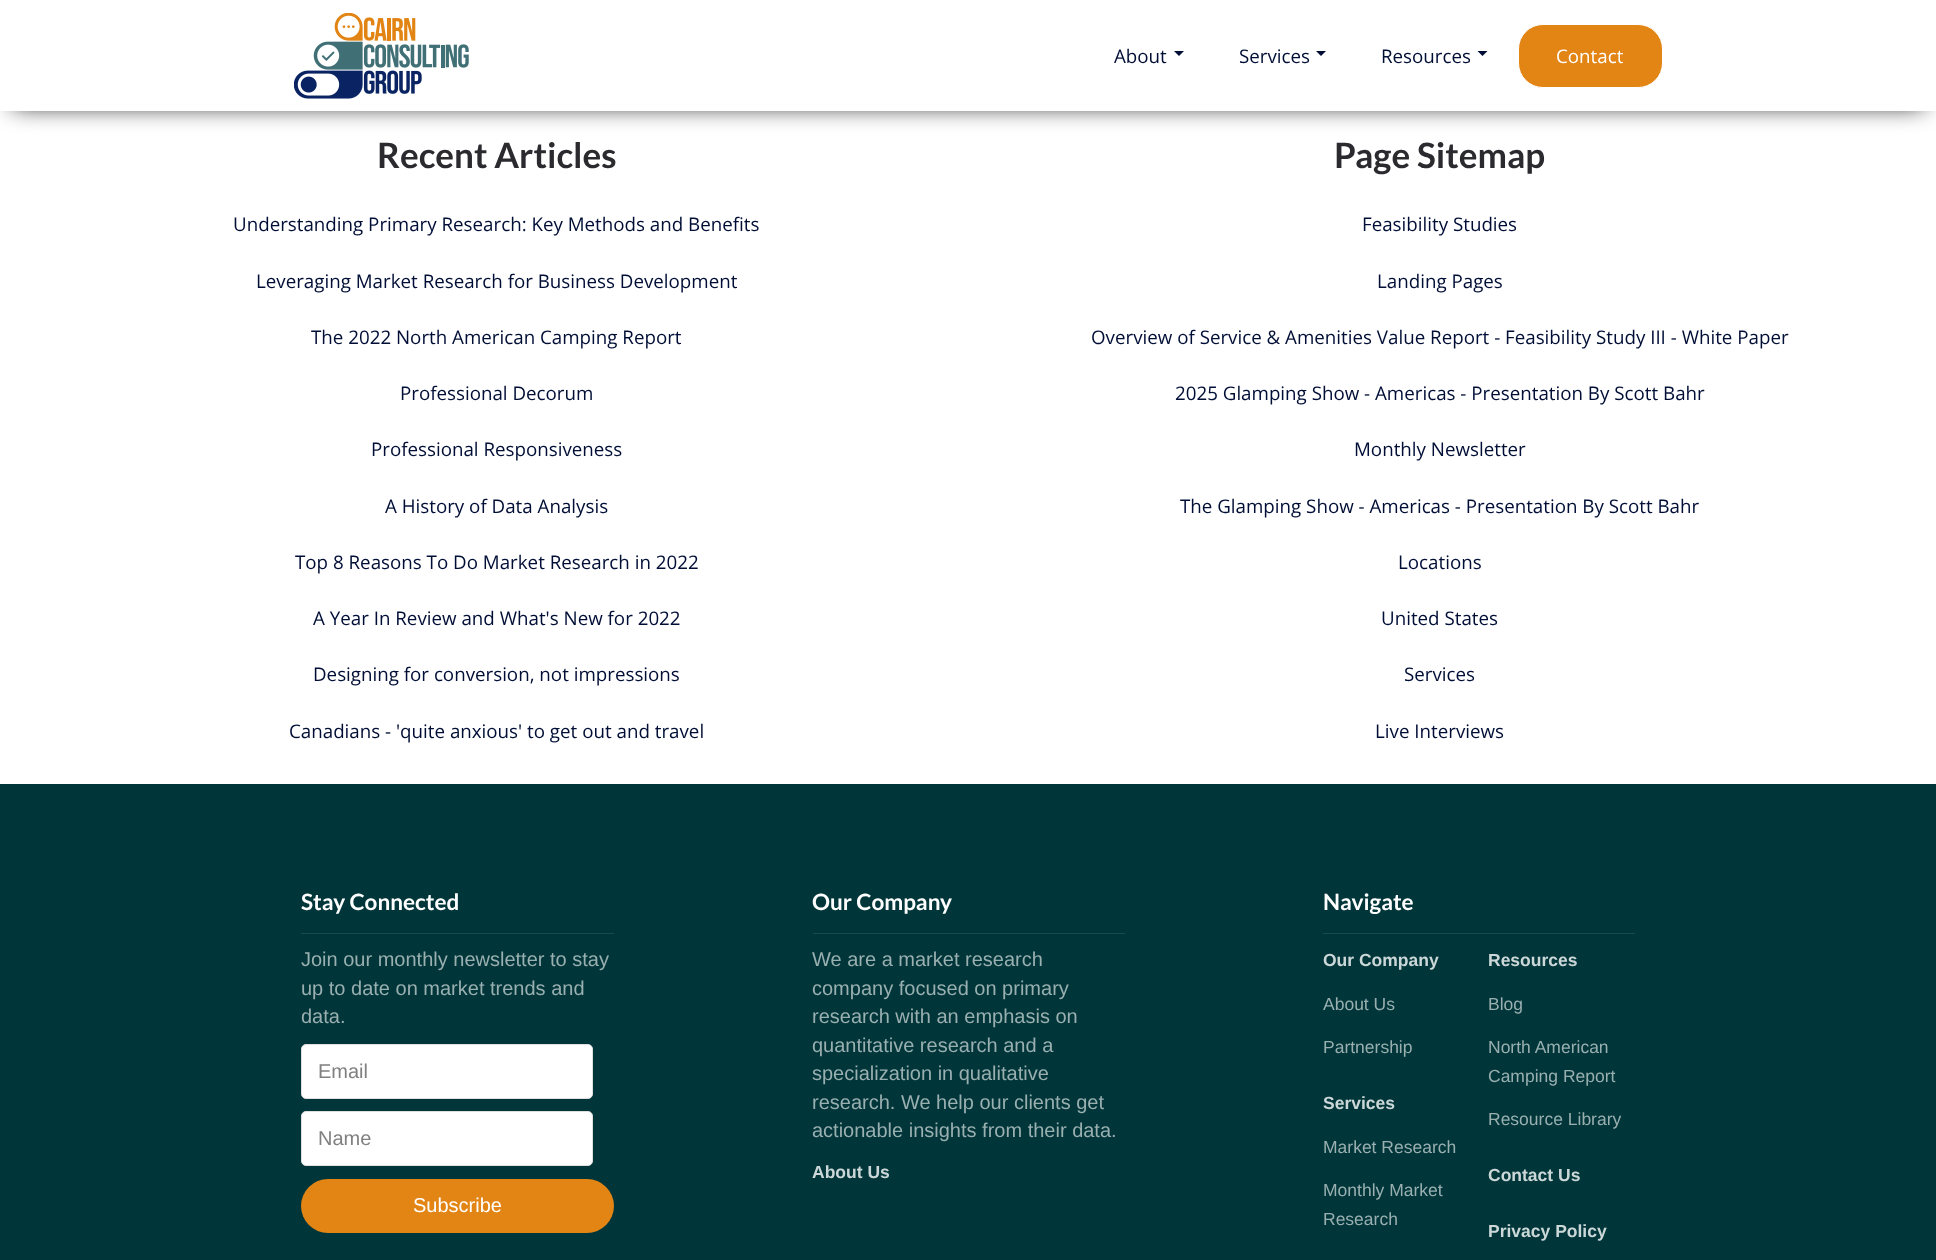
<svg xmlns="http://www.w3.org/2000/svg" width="1936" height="1260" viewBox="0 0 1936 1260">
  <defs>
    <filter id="blur1" x="-50%" y="-200%" width="200%" height="500%"><feGaussianBlur stdDeviation="12.5"/></filter>
  </defs>
  <rect width="100%" height="100%" fill="#ffffff"/>
  <rect x="13" y="19" width="1911" height="86" fill="#000000" filter="url(#blur1)"/>
  <rect x="0" y="0" width="1936" height="111" fill="#ffffff"/>
  <image x="294" y="13" width="175" height="86" href="img1.png"/>
  <text x="1114" y="63" font-family="Open Sans" font-size="18.75" fill="#000e36">About</text>
  <path d="M1174 51H1184L1179 56Z" fill="#000e36"/>
  <text x="1239" y="63" font-family="Open Sans" font-size="18.75" fill="#000e36">Services</text>
  <path d="M1316 51H1326L1321 56Z" fill="#000e36"/>
  <text x="1381" y="63" font-family="Open Sans" font-size="18.75" fill="#000e36">Resources</text>
  <path d="M1477.5 51H1487.5L1482.5 56Z" fill="#000e36"/>
  <rect x="1518.5" y="24.5" width="144" height="63" rx="24.5" fill="#e28515" stroke="#ffffff"/>
  <text x="1556" y="63" font-family="Open Sans" font-size="18.75" fill="#ffffff">Contact</text>
  <text x="377" y="168" font-family="Lato" font-size="35" font-weight="bold" fill="#2a2a2f">Recent Articles</text>
  <text x="233" y="231" font-family="Open Sans" font-size="18.75" fill="#000e36">Understanding Primary Research: Key Methods and Benefits</text>
  <text x="256" y="288" font-family="Open Sans" font-size="18.75" fill="#000e36">Leveraging Market Research for Business Development</text>
  <text x="311" y="344" font-family="Open Sans" font-size="18.75" fill="#000e36">The 2022 North American Camping Report</text>
  <text x="400" y="400" font-family="Open Sans" font-size="18.75" fill="#000e36">Professional Decorum</text>
  <text x="371" y="456" font-family="Open Sans" font-size="18.75" fill="#000e36">Professional Responsiveness</text>
  <text x="385" y="513" font-family="Open Sans" font-size="18.75" fill="#000e36">A History of Data Analysis</text>
  <text x="295" y="569" font-family="Open Sans" font-size="18.75" fill="#000e36">Top 8 Reasons To Do Market Research in 2022</text>
  <text x="313" y="625" font-family="Open Sans" font-size="18.75" fill="#000e36">A Year In Review and What's New for 2022</text>
  <text x="313" y="681" font-family="Open Sans" font-size="18.75" fill="#000e36">Designing for conversion, not impressions</text>
  <text x="289" y="738" font-family="Open Sans" font-size="18.75" fill="#000e36">Canadians - 'quite anxious' to get out and travel</text>
  <text x="1334" y="168" font-family="Lato" font-size="35" font-weight="bold" fill="#2a2a2f">Page Sitemap</text>
  <text x="1362" y="231" font-family="Open Sans" font-size="18.75" fill="#000e36">Feasibility Studies</text>
  <text x="1377" y="288" font-family="Open Sans" font-size="18.75" fill="#000e36">Landing Pages</text>
  <text x="1091" y="344" font-family="Open Sans" font-size="18.75" fill="#000e36">Overview of Service &amp; Amenities Value Report - Feasibility Study III - White Paper</text>
  <text x="1175" y="400" font-family="Open Sans" font-size="18.75" fill="#000e36">2025 Glamping Show - Americas - Presentation By Scott Bahr</text>
  <text x="1354" y="456" font-family="Open Sans" font-size="18.75" fill="#000e36">Monthly Newsletter</text>
  <text x="1180" y="513" font-family="Open Sans" font-size="18.75" fill="#000e36">The Glamping Show - Americas - Presentation By Scott Bahr</text>
  <text x="1398" y="569" font-family="Open Sans" font-size="18.75" fill="#000e36">Locations</text>
  <text x="1381" y="625" font-family="Open Sans" font-size="18.75" fill="#000e36">United States</text>
  <text x="1404" y="681" font-family="Open Sans" font-size="18.75" fill="#000e36">Services</text>
  <text x="1375" y="738" font-family="Open Sans" font-size="18.75" fill="#000e36">Live Interviews</text>
  <rect x="0" y="784" width="1936" height="476" fill="#00363a"/>
  <rect x="301" y="933" width="313" height="1" fill="#1a4a4e"/>
  <text x="301" y="910" font-family="Lato" font-size="22.5" font-weight="bold" fill="#ffffff">Stay Connected</text>
  <text x="301" y="966" font-family="Liberation Sans" font-size="20" fill="#99afb0">Join our monthly newsletter to stay</text>
  <text x="301" y="995" font-family="Liberation Sans" font-size="20" fill="#99afb0">up to date on market trends and</text>
  <text x="301" y="1023" font-family="Liberation Sans" font-size="20" fill="#99afb0">data.</text>
  <rect x="301.5" y="1044.5" width="291" height="54" rx="4.5" fill="#ffffff" stroke="#dfdfdf"/>
  <text x="318" y="1078" font-family="Liberation Sans" font-size="20" fill="#808080">Email</text>
  <rect x="301.5" y="1111.5" width="291" height="54" rx="4.5" fill="#ffffff" stroke="#dfdfdf"/>
  <text x="318" y="1145" font-family="Liberation Sans" font-size="20" fill="#808080">Name</text>
  <rect x="301" y="1179" width="313" height="54" rx="27" fill="#e28515"/>
  <text x="413" y="1212" font-family="Liberation Sans" font-size="20" fill="#ffffff">Subscribe</text>
  <rect x="813" y="933" width="312" height="1" fill="#1a4a4e"/>
  <text x="812" y="910" font-family="Lato" font-size="22.5" font-weight="bold" fill="#ffffff">Our Company</text>
  <text x="812" y="966" font-family="Liberation Sans" font-size="20" fill="#99afb0">We are a market research</text>
  <text x="812" y="995" font-family="Liberation Sans" font-size="20" fill="#99afb0">company focused on primary</text>
  <text x="812" y="1023" font-family="Liberation Sans" font-size="20" fill="#99afb0">research with an emphasis on</text>
  <text x="812" y="1052" font-family="Liberation Sans" font-size="20" fill="#99afb0">quantitative research and a</text>
  <text x="812" y="1080" font-family="Liberation Sans" font-size="20" fill="#99afb0">specialization in qualitative</text>
  <text x="812" y="1109" font-family="Liberation Sans" font-size="20" fill="#99afb0">research. We help our clients get</text>
  <text x="812" y="1137" font-family="Liberation Sans" font-size="20" fill="#99afb0">actionable insights from their data.</text>
  <text x="812" y="1178" font-family="Liberation Sans" font-size="17.5" font-weight="bold" fill="#ccd7d8">About Us</text>
  <rect x="1323" y="933" width="312" height="1" fill="#1a4a4e"/>
  <text x="1323" y="910" font-family="Lato" font-size="22.5" font-weight="bold" fill="#ffffff">Navigate</text>
  <text x="1323" y="966" font-family="Liberation Sans" font-size="17.5" font-weight="bold" fill="#ccd7d8">Our Company</text>
  <text x="1323" y="1010" font-family="Liberation Sans" font-size="17.5" fill="#99afb0">About Us</text>
  <text x="1323" y="1053" font-family="Liberation Sans" font-size="17.5" fill="#99afb0">Partnership</text>
  <text x="1323" y="1109" font-family="Liberation Sans" font-size="17.5" font-weight="bold" fill="#ccd7d8">Services</text>
  <text x="1323" y="1153" font-family="Liberation Sans" font-size="17.5" fill="#99afb0">Market Research</text>
  <text x="1323" y="1196" font-family="Liberation Sans" font-size="17.5" fill="#99afb0">Monthly Market</text>
  <text x="1323" y="1225" font-family="Liberation Sans" font-size="17.5" fill="#99afb0">Research</text>
  <text x="1488" y="966" font-family="Liberation Sans" font-size="17.5" font-weight="bold" fill="#ccd7d8">Resources</text>
  <text x="1488" y="1010" font-family="Liberation Sans" font-size="17.5" fill="#99afb0">Blog</text>
  <text x="1488" y="1053" font-family="Liberation Sans" font-size="17.5" fill="#99afb0">North American</text>
  <text x="1488" y="1082" font-family="Liberation Sans" font-size="17.5" fill="#99afb0">Camping Report</text>
  <text x="1488" y="1125" font-family="Liberation Sans" font-size="17.5" fill="#99afb0">Resource Library</text>
  <text x="1488" y="1181" font-family="Liberation Sans" font-size="17.5" font-weight="bold" fill="#ccd7d8">Contact Us</text>
  <text x="1488" y="1237" font-family="Liberation Sans" font-size="17.5" font-weight="bold" fill="#ccd7d8">Privacy Policy</text>
</svg>
